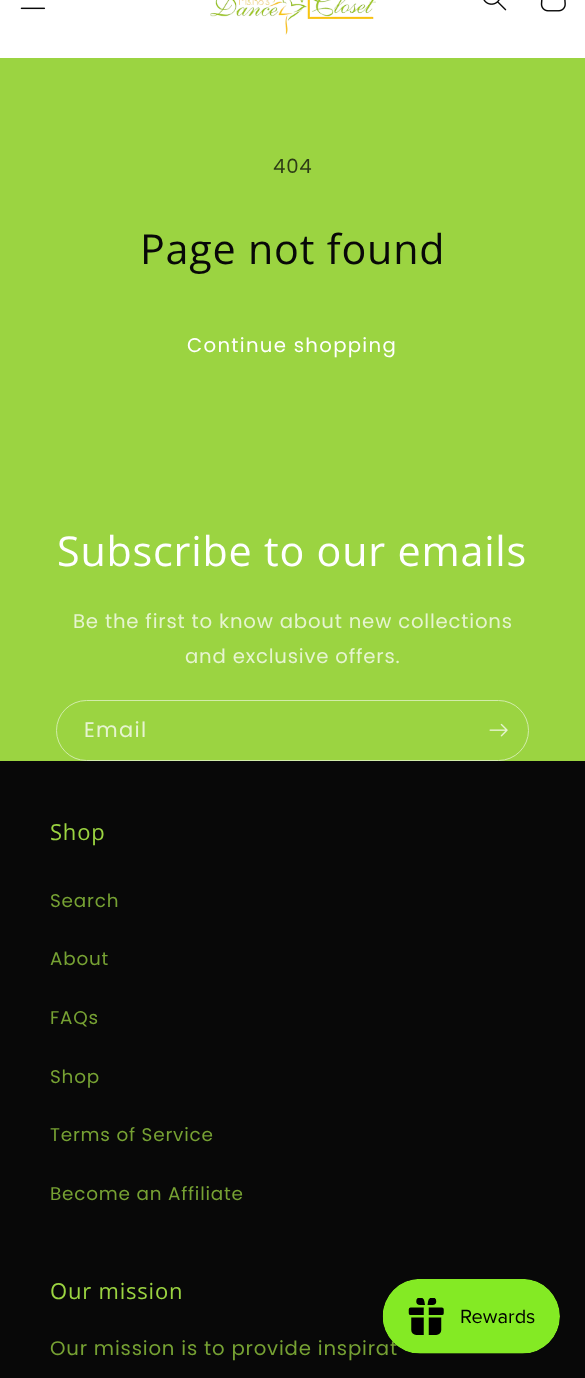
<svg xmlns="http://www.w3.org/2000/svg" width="585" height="1378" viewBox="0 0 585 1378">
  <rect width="100%" height="100%" fill="#9bd441"/>
  <rect x="0" y="0" width="585" height="58" fill="#ffffff"/>
  <image x="20" y="7" width="26" height="3" href="img1.png"/>
  <image x="210" y="0" width="166" height="35" href="img2.png"/>
  <image x="483" y="0" width="24" height="11" href="img3.png"/>
  <image x="540" y="0" width="26" height="12" href="img4.png"/>
  <text x="273" y="173" font-family="Poppins" font-size="19.7" letter-spacing="0.8" fill="#2d3b16">404</text>
  <text x="140" y="264" font-family="Open Sans" font-size="41.25" letter-spacing="0.8" fill="#080808">Page not found</text>
  <text x="187" y="352" font-family="Poppins" font-size="19.7" letter-spacing="1.3" fill="#ffffff">Continue shopping</text>
  <text x="57" y="566" font-family="Open Sans" font-size="41.25" letter-spacing="0.8" fill="#ffffff">Subscribe to our emails</text>
  <text x="73" y="628" font-family="Poppins" font-size="19.7" letter-spacing="0.8" fill="#e6f4d0">Be the first to know about new collections</text>
  <text x="185" y="663" font-family="Poppins" font-size="19.7" letter-spacing="0.8" fill="#e6f4d0">and exclusive offers.</text>
  <rect x="56.5" y="700.5" width="472" height="60" rx="30" fill="none" stroke="#d2ecaa"/>
  <text x="84" y="737" font-family="Poppins" font-size="21" letter-spacing="1.3" fill="#e6f4d0">Email</text>
  <image x="489" y="723" width="19" height="14" href="img5.png"/>
  <rect x="0" y="761" width="585" height="617" fill="#080808"/>
  <text x="50" y="840" font-family="Open Sans" font-size="22" letter-spacing="0.8" fill="#9bd441">Shop</text>
  <text x="50" y="907" font-family="Poppins" font-size="18.4" letter-spacing="0.8" fill="#76a133">Search</text>
  <text x="50" y="965" font-family="Poppins" font-size="18.4" letter-spacing="0.8" fill="#76a133">About</text>
  <text x="50" y="1024" font-family="Poppins" font-size="18.4" letter-spacing="0.8" fill="#76a133">FAQs</text>
  <text x="50" y="1083" font-family="Poppins" font-size="18.4" letter-spacing="0.8" fill="#76a133">Shop</text>
  <text x="50" y="1141" font-family="Poppins" font-size="18.4" letter-spacing="0.8" fill="#76a133">Terms of Service</text>
  <text x="50" y="1200" font-family="Poppins" font-size="18.4" letter-spacing="0.8" fill="#76a133">Become an Affiliate</text>
  <text x="50" y="1299" font-family="Open Sans" font-size="22" letter-spacing="0.8" fill="#9bd441">Our mission</text>
  <text x="50" y="1355" font-family="Poppins" font-size="19.7" letter-spacing="0.8" fill="#76a133">Our mission is to provide inspirat</text>
  <image x="382" y="1279" width="178" height="75" href="img6.png"/>
</svg>
